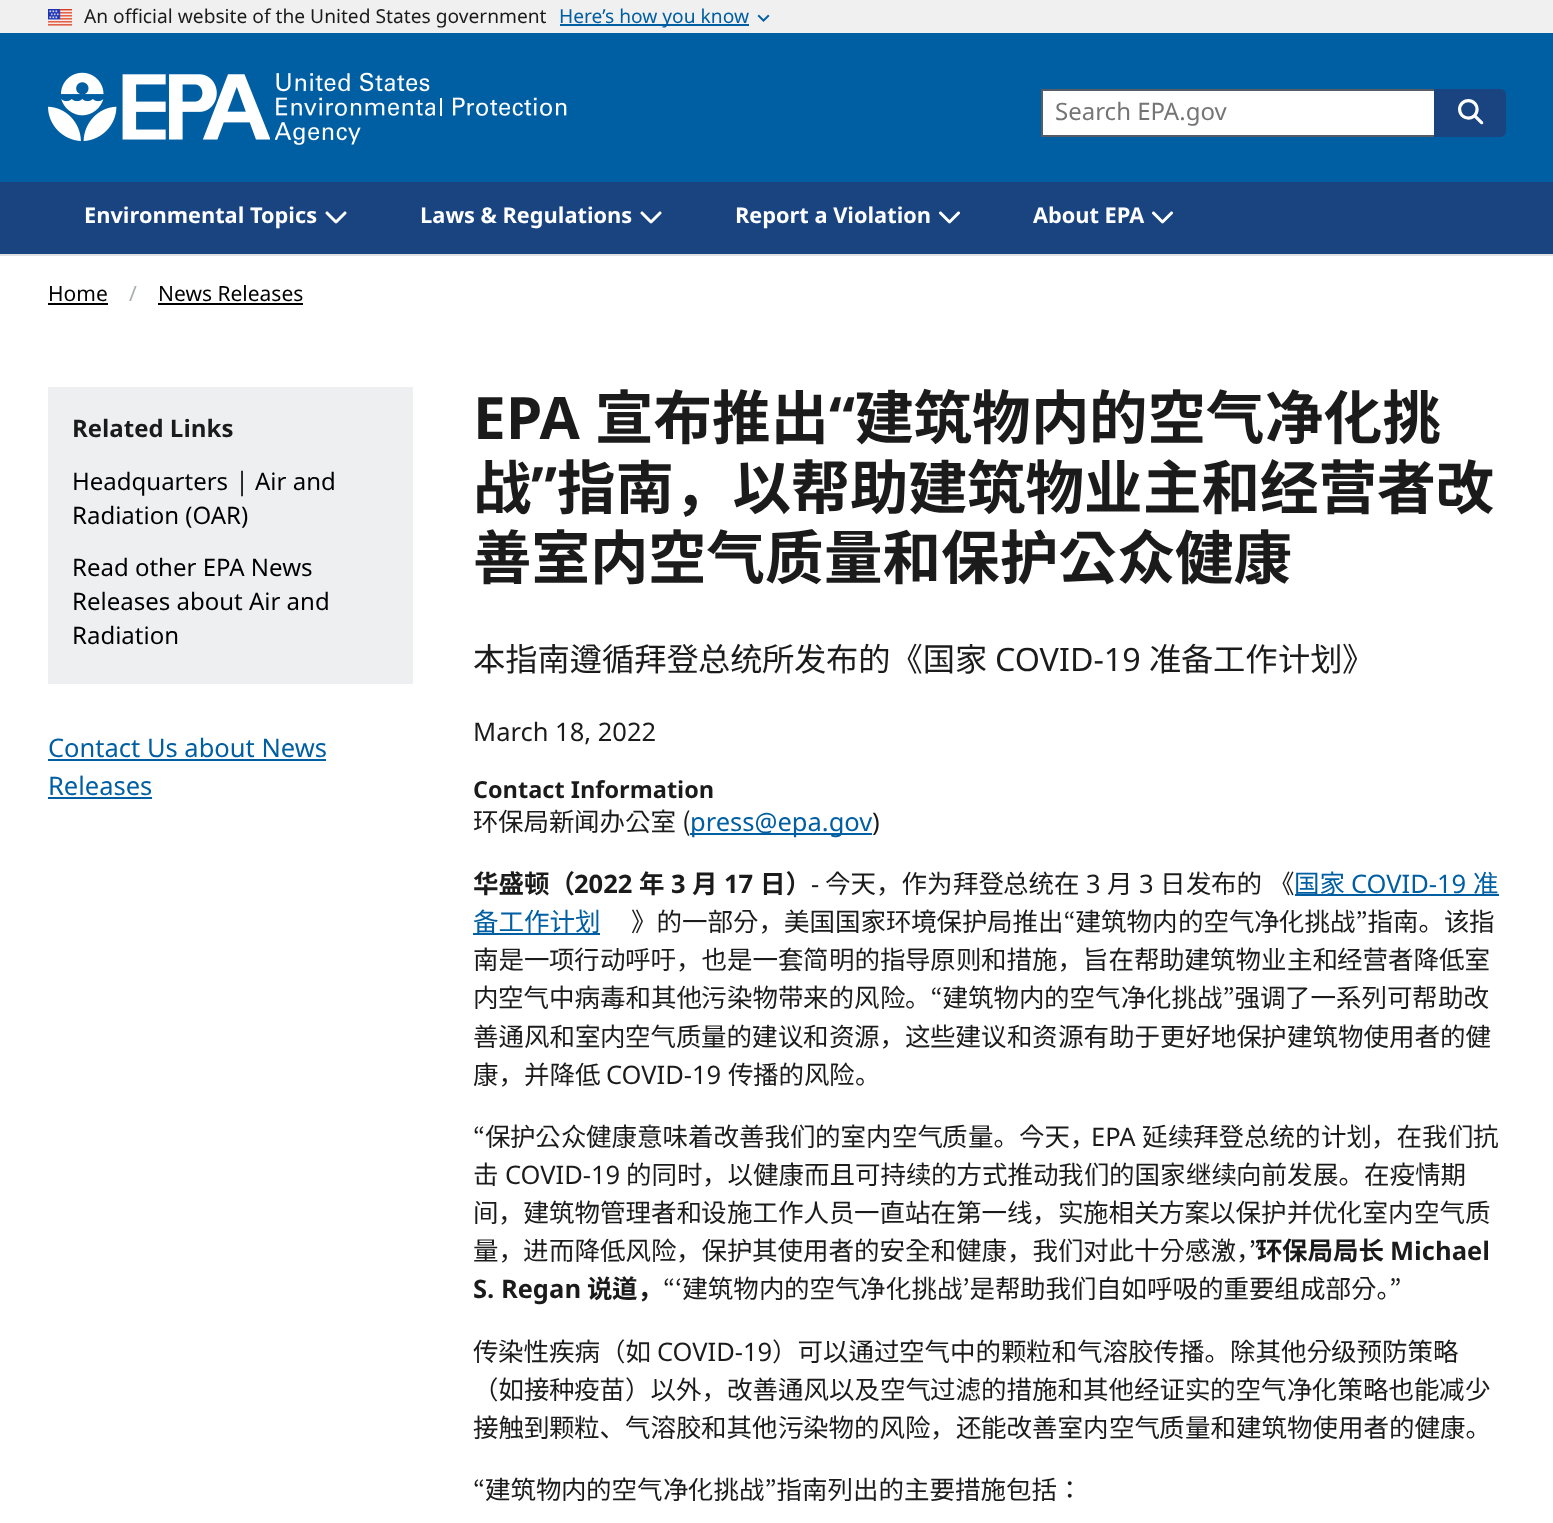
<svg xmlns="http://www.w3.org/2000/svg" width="1553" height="1523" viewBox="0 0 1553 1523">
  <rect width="100%" height="100%" fill="#ffffff"/>
  <rect x="0" y="0" width="1553" height="33" fill="#f0f0f0"/>
  <image x="48" y="9" width="24" height="17" href="img1.png"/>
  <text x="84" y="23" font-family="Noto Sans Arabic" font-size="19.2" fill="#1b1b1b">An official website of the United States government</text>
  <rect x="560" y="24" width="189" height="2" fill="#005ea2"/>
  <text x="559" y="23" font-family="Noto Sans Arabic" font-size="19.2" fill="#005ea2">Here’s how you know</text>
  <image x="757" y="14" width="13" height="8" href="img2.png"/>
  <rect x="0" y="33" width="1553" height="149" fill="#005ea2"/>
  <image x="48" y="72" width="222" height="69" href="img3.png"/>
  <image x="275" y="72" width="292" height="73" href="img4.png"/>
  <rect x="1043" y="91" width="391" height="44" fill="#ffffff"/>
  <rect x="1041" y="89" width="393" height="2" fill="#565c65"/>
  <rect x="1041" y="135" width="393" height="2" fill="#565c65"/>
  <rect x="1041" y="89" width="2" height="48" fill="#565c65"/>
  <text x="1055" y="120" font-family="Noto Sans Arabic" font-size="24" fill="#757575">Search EPA.gov</text>
  <path d="M1434 89H1500C1503.5 89 1506 91.5 1506 95V131C1506 134.5 1503.5 137 1500 137H1434Z" fill="#1a4480"/>
  <image x="1458" y="99" width="26" height="26" href="img5.png"/>
  <rect x="0" y="182" width="1553" height="72" fill="#1a4480"/>
  <text x="84" y="223" font-family="Noto Sans Arabic" font-size="21.75" font-weight="bold" fill="#ffffff">Environmental Topics</text>
  <image x="325" y="211" width="22" height="13" href="img6.png"/>
  <text x="420" y="223" font-family="Noto Sans Arabic" font-size="21.75" font-weight="bold" fill="#ffffff">Laws &amp; Regulations</text>
  <image x="640" y="211" width="22" height="13" href="img6.png"/>
  <text x="735" y="223" font-family="Noto Sans Arabic" font-size="21.75" font-weight="bold" fill="#ffffff">Report a Violation</text>
  <image x="939" y="211" width="21" height="13" href="img7.png"/>
  <text x="1033" y="223" font-family="Noto Sans Arabic" font-size="21.75" font-weight="bold" fill="#ffffff">About EPA</text>
  <image x="1152" y="211" width="21" height="13" href="img7.png"/>
  <rect x="0" y="254" width="1553" height="2" fill="#dfe1e2"/>
  <text x="48" y="301" font-family="Noto Sans Arabic" font-size="21" fill="#000000">Home</text>
  <rect x="48" y="303" width="60" height="2" fill="#000000"/>
  <text x="129" y="301" font-family="Noto Sans Arabic" font-size="21" fill="#a9aeb1">/</text>
  <text x="158" y="301" font-family="Noto Sans Arabic" font-size="21" fill="#000000">News Releases</text>
  <rect x="158" y="303" width="145" height="2" fill="#000000"/>
  <rect x="48" y="387" width="365" height="297" fill="#edeff0"/>
  <text x="72" y="437" font-family="Noto Sans Arabic" font-size="24" font-weight="bold" fill="#1b1b1b">Related Links</text>
  <text x="72" y="490" font-family="Noto Sans Arabic" font-size="24" fill="#000000">Headquarters</text>
  <text x="235" y="490" font-family="Noto Sans Arabic" font-size="25.5" fill="#1b1b1b">|</text>
  <text x="255" y="490" font-family="Noto Sans Arabic" font-size="24" fill="#000000">Air and</text>
  <text x="72" y="524" font-family="Noto Sans Arabic" font-size="24" fill="#000000">Radiation (OAR)</text>
  <text x="72" y="576" font-family="Noto Sans Arabic" font-size="24" fill="#000000">Read other EPA News</text>
  <text x="72" y="610" font-family="Noto Sans Arabic" font-size="24" fill="#000000">Releases about Air and</text>
  <text x="72" y="644" font-family="Noto Sans Arabic" font-size="24" fill="#000000">Radiation</text>
  <text x="48" y="757" font-family="Noto Sans Arabic" font-size="25.5" fill="#005ea2">Contact Us about News</text>
  <rect x="48" y="759" width="278" height="2" fill="#005ea2"/>
  <text x="48" y="795" font-family="Noto Sans Arabic" font-size="25.5" fill="#005ea2">Releases</text>
  <rect x="48" y="797" width="104" height="2" fill="#005ea2"/>
  <text x="473" y="439" font-family="Noto Sans Arabic" font-size="58.5" font-weight="bold" fill="#1b1b1b">EPA</text>
  <text x="595" y="439" font-family="Noto Sans KR" font-size="58.5" font-weight="bold" fill="#1b1b1b">宣布推出</text>
  <text x="829" y="439" font-family="Noto Sans Arabic" font-size="58.5" font-weight="bold" fill="#1b1b1b">“</text>
  <text x="855" y="439" font-family="Noto Sans KR" font-size="58.5" font-weight="bold" fill="#1b1b1b">建筑物</text>
  <text x="1031" y="439" font-family="Noto Sans SC" font-size="58.5" font-weight="bold" fill="#1b1b1b">内</text>
  <text x="1089" y="439" font-family="Noto Sans KR" font-size="58.5" font-weight="bold" fill="#1b1b1b">的空气</text>
  <text x="1265" y="439" font-family="Noto Sans SC" font-size="58.5" font-weight="bold" fill="#1b1b1b">净</text>
  <text x="1324" y="439" font-family="Noto Sans KR" font-size="58.5" font-weight="bold" fill="#1b1b1b">化挑</text>
  <text x="473" y="509" font-family="Noto Sans KR" font-size="58.5" font-weight="bold" fill="#1b1b1b">战</text>
  <text x="531" y="509" font-family="Noto Sans Arabic" font-size="58.5" font-weight="bold" fill="#1b1b1b">”</text>
  <text x="557" y="509" font-family="Noto Sans KR" font-size="58.5" font-weight="bold" fill="#1b1b1b">指南，以</text>
  <text x="791" y="509" font-family="Noto Sans SC" font-size="58.5" font-weight="bold" fill="#1b1b1b">帮</text>
  <text x="850" y="509" font-family="Noto Sans KR" font-size="58.5" font-weight="bold" fill="#1b1b1b">助建筑物</text>
  <text x="1084" y="509" font-family="Noto Sans SC" font-size="58.5" font-weight="bold" fill="#1b1b1b">业</text>
  <text x="1143" y="509" font-family="Noto Sans KR" font-size="58.5" font-weight="bold" fill="#1b1b1b">主和</text>
  <text x="1260" y="509" font-family="Noto Sans SC" font-size="58.5" font-weight="bold" fill="#1b1b1b">经营</text>
  <text x="1377" y="509" font-family="Noto Sans KR" font-size="58.5" font-weight="bold" fill="#1b1b1b">者改</text>
  <text x="473" y="579" font-family="Noto Sans KR" font-size="58.5" font-weight="bold" fill="#1b1b1b">善室</text>
  <text x="590" y="579" font-family="Noto Sans SC" font-size="58.5" font-weight="bold" fill="#1b1b1b">内</text>
  <text x="648" y="579" font-family="Noto Sans KR" font-size="58.5" font-weight="bold" fill="#1b1b1b">空气</text>
  <text x="765" y="579" font-family="Noto Sans SC" font-size="58.5" font-weight="bold" fill="#1b1b1b">质</text>
  <text x="824" y="579" font-family="Noto Sans KR" font-size="58.5" font-weight="bold" fill="#1b1b1b">量和保</text>
  <text x="1000" y="579" font-family="Noto Sans SC" font-size="58.5" font-weight="bold" fill="#1b1b1b">护</text>
  <text x="1058" y="579" font-family="Noto Sans KR" font-size="58.5" font-weight="bold" fill="#1b1b1b">公</text>
  <text x="1117" y="579" font-family="Noto Sans SC" font-size="58.5" font-weight="bold" fill="#1b1b1b">众</text>
  <text x="1175" y="579" font-family="Noto Sans KR" font-size="58.5" font-weight="bold" fill="#1b1b1b">健康</text>
  <text x="473" y="671" font-family="Noto Sans KR" font-size="32.25" fill="#1b1b1b">本指南遵循拜登</text>
  <text x="698" y="671" font-family="Noto Sans SC" font-size="32.25" fill="#1b1b1b">总统</text>
  <text x="762" y="671" font-family="Noto Sans KR" font-size="32.25" fill="#1b1b1b">所</text>
  <text x="794" y="671" font-family="Noto Sans SC" font-size="32.25" fill="#1b1b1b">发</text>
  <text x="826" y="671" font-family="Noto Sans KR" font-size="32.25" fill="#1b1b1b">布的《国家</text>
  <text x="995" y="671" font-family="Noto Sans Arabic" font-size="32.25" fill="#1b1b1b">COVID-19</text>
  <text x="1149" y="671" font-family="Noto Sans KR" font-size="32.25" fill="#1b1b1b">准</text>
  <text x="1181" y="671" font-family="Noto Sans SC" font-size="32.25" fill="#1b1b1b">备</text>
  <text x="1213" y="671" font-family="Noto Sans KR" font-size="32.25" fill="#1b1b1b">工作</text>
  <text x="1278" y="671" font-family="Noto Sans SC" font-size="32.25" fill="#1b1b1b">计划</text>
  <text x="1342" y="671" font-family="Noto Sans KR" font-size="32.25" fill="#1b1b1b">》</text>
  <text x="473" y="741" font-family="Noto Sans Arabic" font-size="25.5" fill="#1b1b1b">March 18, 2022</text>
  <text x="473" y="798" font-family="Noto Sans Arabic" font-size="23.5" font-weight="bold" fill="#1b1b1b">Contact Information</text>
  <text x="473" y="831" font-family="Noto Sans SC" font-size="25.5" fill="#1b1b1b">环</text>
  <text x="498" y="831" font-family="Noto Sans KR" font-size="25.5" fill="#1b1b1b">保局新</text>
  <text x="574" y="831" font-family="Noto Sans SC" font-size="25.5" fill="#1b1b1b">闻办</text>
  <text x="625" y="831" font-family="Noto Sans KR" font-size="25.5" fill="#1b1b1b">公室</text>
  <text x="682" y="831" font-family="Noto Sans KR" font-size="25.5" fill="#1b1b1b">(</text>
  <rect x="690" y="833" width="182" height="2" fill="#005ea2"/>
  <text x="690" y="831" font-family="Noto Sans Arabic" font-size="25.5" fill="#005ea2">press@epa.gov</text>
  <text x="872" y="831" font-family="Noto Sans Arabic" font-size="25.5" fill="#1b1b1b">)</text>
  <text x="473" y="893" font-family="Noto Sans SC" font-size="25.5" font-weight="bold" fill="#1b1b1b">华盛顿（</text>
  <text x="574" y="893" font-family="Noto Sans Arabic" font-size="25.5" font-weight="bold" fill="#1b1b1b">2022</text>
  <text x="639" y="893" font-family="Noto Sans KR" font-size="25.5" font-weight="bold" fill="#1b1b1b">年</text>
  <text x="671" y="893" font-family="Noto Sans Arabic" font-size="25.5" font-weight="bold" fill="#1b1b1b">3</text>
  <text x="692" y="893" font-family="Noto Sans KR" font-size="25.5" font-weight="bold" fill="#1b1b1b">月</text>
  <text x="724" y="893" font-family="Noto Sans Arabic" font-size="25.5" font-weight="bold" fill="#1b1b1b">17</text>
  <text x="760" y="893" font-family="Noto Sans KR" font-size="25.5" font-weight="bold" fill="#1b1b1b">日）</text>
  <text x="811" y="893" font-family="Noto Sans Arabic" font-size="25.5" fill="#1b1b1b">-</text>
  <text x="825" y="893" font-family="Noto Sans KR" font-size="25.5" fill="#1b1b1b">今天，作</text>
  <text x="927" y="893" font-family="Noto Sans SC" font-size="25.5" fill="#1b1b1b">为</text>
  <text x="953" y="893" font-family="Noto Sans KR" font-size="25.5" fill="#1b1b1b">拜登</text>
  <text x="1003" y="893" font-family="Noto Sans SC" font-size="25.5" fill="#1b1b1b">总统</text>
  <text x="1054" y="893" font-family="Noto Sans KR" font-size="25.5" fill="#1b1b1b">在</text>
  <text x="1086" y="893" font-family="Noto Sans Arabic" font-size="25.5" fill="#1b1b1b">3</text>
  <text x="1107" y="893" font-family="Noto Sans KR" font-size="25.5" fill="#1b1b1b">月</text>
  <text x="1139" y="893" font-family="Noto Sans Arabic" font-size="25.5" fill="#1b1b1b">3</text>
  <text x="1160" y="893" font-family="Noto Sans KR" font-size="25.5" fill="#1b1b1b">日</text>
  <text x="1186" y="893" font-family="Noto Sans SC" font-size="25.5" fill="#1b1b1b">发</text>
  <text x="1211" y="893" font-family="Noto Sans KR" font-size="25.5" fill="#1b1b1b">布的</text>
  <text x="1269" y="893" font-family="Noto Sans KR" font-size="25.5" fill="#1b1b1b">《</text>
  <rect x="1295" y="894" width="204" height="2" fill="#005ea2"/>
  <text x="1294" y="893" font-family="Noto Sans KR" font-size="25.5" fill="#005ea2">国家</text>
  <text x="1351" y="893" font-family="Noto Sans Arabic" font-size="25.5" fill="#005ea2">COVID-19</text>
  <text x="1473" y="893" font-family="Noto Sans SC" font-size="25.5" fill="#005ea2">准</text>
  <rect x="473" y="933" width="127" height="2" fill="#005ea2"/>
  <text x="473" y="931" font-family="Noto Sans SC" font-size="25.5" fill="#005ea2">备工作计划</text>
  <text x="631" y="931" font-family="Noto Sans KR" font-size="25.5" fill="#1b1b1b">》的一部分，美国国家</text>
  <text x="886" y="931" font-family="Noto Sans SC" font-size="25.5" fill="#1b1b1b">环</text>
  <text x="911" y="931" font-family="Noto Sans KR" font-size="25.5" fill="#1b1b1b">境保</text>
  <text x="962" y="931" font-family="Noto Sans SC" font-size="25.5" fill="#1b1b1b">护</text>
  <text x="987" y="931" font-family="Noto Sans KR" font-size="25.5" fill="#1b1b1b">局推出“建筑物</text>
  <text x="1152" y="931" font-family="Noto Sans SC" font-size="25.5" fill="#1b1b1b">内</text>
  <text x="1178" y="931" font-family="Noto Sans KR" font-size="25.5" fill="#1b1b1b">的空气</text>
  <text x="1254" y="931" font-family="Noto Sans SC" font-size="25.5" fill="#1b1b1b">净</text>
  <text x="1279" y="931" font-family="Noto Sans KR" font-size="25.5" fill="#1b1b1b">化挑战”指南。</text>
  <text x="1444" y="931" font-family="Noto Sans SC" font-size="25.5" fill="#1b1b1b">该</text>
  <text x="1469" y="931" font-family="Noto Sans KR" font-size="25.5" fill="#1b1b1b">指</text>
  <text x="473" y="969" font-family="Noto Sans KR" font-size="25.5" fill="#1b1b1b">南是一</text>
  <text x="549" y="969" font-family="Noto Sans SC" font-size="25.5" fill="#1b1b1b">项</text>
  <text x="574" y="969" font-family="Noto Sans KR" font-size="25.5" fill="#1b1b1b">行</text>
  <text x="600" y="969" font-family="Noto Sans SC" font-size="25.5" fill="#1b1b1b">动</text>
  <text x="625" y="969" font-family="Noto Sans KR" font-size="25.5" fill="#1b1b1b">呼吁，也是一套</text>
  <text x="803" y="969" font-family="Noto Sans SC" font-size="25.5" fill="#1b1b1b">简</text>
  <text x="829" y="969" font-family="Noto Sans KR" font-size="25.5" fill="#1b1b1b">明的指</text>
  <text x="905" y="969" font-family="Noto Sans SC" font-size="25.5" fill="#1b1b1b">导</text>
  <text x="930" y="969" font-family="Noto Sans KR" font-size="25.5" fill="#1b1b1b">原</text>
  <text x="956" y="969" font-family="Noto Sans SC" font-size="25.5" fill="#1b1b1b">则</text>
  <text x="981" y="969" font-family="Noto Sans KR" font-size="25.5" fill="#1b1b1b">和措施，旨在</text>
  <text x="1134" y="969" font-family="Noto Sans SC" font-size="25.5" fill="#1b1b1b">帮</text>
  <text x="1159" y="969" font-family="Noto Sans KR" font-size="25.5" fill="#1b1b1b">助建筑物</text>
  <text x="1261" y="969" font-family="Noto Sans SC" font-size="25.5" fill="#1b1b1b">业</text>
  <text x="1287" y="969" font-family="Noto Sans KR" font-size="25.5" fill="#1b1b1b">主和</text>
  <text x="1337" y="969" font-family="Noto Sans SC" font-size="25.5" fill="#1b1b1b">经营</text>
  <text x="1388" y="969" font-family="Noto Sans KR" font-size="25.5" fill="#1b1b1b">者降低室</text>
  <text x="473" y="1007" font-family="Noto Sans SC" font-size="25.5" fill="#1b1b1b">内</text>
  <text x="498" y="1007" font-family="Noto Sans KR" font-size="25.5" fill="#1b1b1b">空气中病毒和其他</text>
  <text x="701" y="1007" font-family="Noto Sans SC" font-size="25.5" fill="#1b1b1b">污</text>
  <text x="727" y="1007" font-family="Noto Sans KR" font-size="25.5" fill="#1b1b1b">染物</text>
  <text x="778" y="1007" font-family="Noto Sans SC" font-size="25.5" fill="#1b1b1b">带</text>
  <text x="803" y="1007" font-family="Noto Sans KR" font-size="25.5" fill="#1b1b1b">来的风</text>
  <text x="880" y="1007" font-family="Noto Sans SC" font-size="25.5" fill="#1b1b1b">险</text>
  <text x="905" y="1007" font-family="Noto Sans KR" font-size="25.5" fill="#1b1b1b">。“建筑物</text>
  <text x="1019" y="1007" font-family="Noto Sans SC" font-size="25.5" fill="#1b1b1b">内</text>
  <text x="1044" y="1007" font-family="Noto Sans KR" font-size="25.5" fill="#1b1b1b">的空气</text>
  <text x="1121" y="1007" font-family="Noto Sans SC" font-size="25.5" fill="#1b1b1b">净</text>
  <text x="1146" y="1007" font-family="Noto Sans KR" font-size="25.5" fill="#1b1b1b">化挑战”强</text>
  <text x="1260" y="1007" font-family="Noto Sans SC" font-size="25.5" fill="#1b1b1b">调</text>
  <text x="1285" y="1007" font-family="Noto Sans KR" font-size="25.5" fill="#1b1b1b">了一系列可</text>
  <text x="1412" y="1007" font-family="Noto Sans SC" font-size="25.5" fill="#1b1b1b">帮</text>
  <text x="1438" y="1007" font-family="Noto Sans KR" font-size="25.5" fill="#1b1b1b">助改</text>
  <text x="473" y="1046" font-family="Noto Sans KR" font-size="25.5" fill="#1b1b1b">善通风和室</text>
  <text x="600" y="1046" font-family="Noto Sans SC" font-size="25.5" fill="#1b1b1b">内</text>
  <text x="625" y="1046" font-family="Noto Sans KR" font-size="25.5" fill="#1b1b1b">空气</text>
  <text x="676" y="1046" font-family="Noto Sans SC" font-size="25.5" fill="#1b1b1b">质</text>
  <text x="701" y="1046" font-family="Noto Sans KR" font-size="25.5" fill="#1b1b1b">量的建</text>
  <text x="778" y="1046" font-family="Noto Sans SC" font-size="25.5" fill="#1b1b1b">议</text>
  <text x="803" y="1046" font-family="Noto Sans KR" font-size="25.5" fill="#1b1b1b">和</text>
  <text x="829" y="1046" font-family="Noto Sans SC" font-size="25.5" fill="#1b1b1b">资</text>
  <text x="854" y="1046" font-family="Noto Sans KR" font-size="25.5" fill="#1b1b1b">源，</text>
  <text x="905" y="1046" font-family="Noto Sans SC" font-size="25.5" fill="#1b1b1b">这</text>
  <text x="930" y="1046" font-family="Noto Sans KR" font-size="25.5" fill="#1b1b1b">些建</text>
  <text x="981" y="1046" font-family="Noto Sans SC" font-size="25.5" fill="#1b1b1b">议</text>
  <text x="1007" y="1046" font-family="Noto Sans KR" font-size="25.5" fill="#1b1b1b">和</text>
  <text x="1032" y="1046" font-family="Noto Sans SC" font-size="25.5" fill="#1b1b1b">资</text>
  <text x="1058" y="1046" font-family="Noto Sans KR" font-size="25.5" fill="#1b1b1b">源有助于更好地保</text>
  <text x="1261" y="1046" font-family="Noto Sans SC" font-size="25.5" fill="#1b1b1b">护</text>
  <text x="1287" y="1046" font-family="Noto Sans KR" font-size="25.5" fill="#1b1b1b">建筑物使用者的健</text>
  <text x="473" y="1084" font-family="Noto Sans KR" font-size="25.5" fill="#1b1b1b">康，并降低</text>
  <text x="606" y="1084" font-family="Noto Sans Arabic" font-size="25.5" fill="#1b1b1b">COVID-19</text>
  <text x="728" y="1084" font-family="Noto Sans SC" font-size="25.5" fill="#1b1b1b">传</text>
  <text x="753" y="1084" font-family="Noto Sans KR" font-size="25.5" fill="#1b1b1b">播的风</text>
  <text x="829" y="1084" font-family="Noto Sans SC" font-size="25.5" fill="#1b1b1b">险</text>
  <text x="855" y="1084" font-family="Noto Sans KR" font-size="25.5" fill="#1b1b1b">。</text>
  <text x="473" y="1146" font-family="Noto Sans KR" font-size="25.5" fill="#1b1b1b">“保</text>
  <text x="510" y="1146" font-family="Noto Sans SC" font-size="25.5" fill="#1b1b1b">护</text>
  <text x="535" y="1146" font-family="Noto Sans KR" font-size="25.5" fill="#1b1b1b">公</text>
  <text x="561" y="1146" font-family="Noto Sans SC" font-size="25.5" fill="#1b1b1b">众</text>
  <text x="586" y="1146" font-family="Noto Sans KR" font-size="25.5" fill="#1b1b1b">健康意味着改善我</text>
  <text x="790" y="1146" font-family="Noto Sans SC" font-size="25.5" fill="#1b1b1b">们</text>
  <text x="815" y="1146" font-family="Noto Sans KR" font-size="25.5" fill="#1b1b1b">的室</text>
  <text x="866" y="1146" font-family="Noto Sans SC" font-size="25.5" fill="#1b1b1b">内</text>
  <text x="892" y="1146" font-family="Noto Sans KR" font-size="25.5" fill="#1b1b1b">空气</text>
  <text x="942" y="1146" font-family="Noto Sans SC" font-size="25.5" fill="#1b1b1b">质</text>
  <text x="968" y="1146" font-family="Noto Sans KR" font-size="25.5" fill="#1b1b1b">量。今天，</text>
  <text x="1091" y="1146" font-family="Noto Sans Arabic" font-size="25.5" fill="#1b1b1b">EPA</text>
  <text x="1142" y="1146" font-family="Noto Sans KR" font-size="25.5" fill="#1b1b1b">延</text>
  <text x="1168" y="1146" font-family="Noto Sans SC" font-size="25.5" fill="#1b1b1b">续</text>
  <text x="1193" y="1146" font-family="Noto Sans KR" font-size="25.5" fill="#1b1b1b">拜登</text>
  <text x="1244" y="1146" font-family="Noto Sans SC" font-size="25.5" fill="#1b1b1b">总统</text>
  <text x="1295" y="1146" font-family="Noto Sans KR" font-size="25.5" fill="#1b1b1b">的</text>
  <text x="1321" y="1146" font-family="Noto Sans SC" font-size="25.5" fill="#1b1b1b">计划</text>
  <text x="1371" y="1146" font-family="Noto Sans KR" font-size="25.5" fill="#1b1b1b">，在我</text>
  <text x="1448" y="1146" font-family="Noto Sans SC" font-size="25.5" fill="#1b1b1b">们</text>
  <text x="1473" y="1146" font-family="Noto Sans KR" font-size="25.5" fill="#1b1b1b">抗</text>
  <text x="473" y="1184" font-family="Noto Sans SC" font-size="25.5" fill="#1b1b1b">击</text>
  <text x="505" y="1184" font-family="Noto Sans Arabic" font-size="25.5" fill="#1b1b1b">COVID-19</text>
  <text x="626" y="1184" font-family="Noto Sans KR" font-size="25.5" fill="#1b1b1b">的同</text>
  <text x="677" y="1184" font-family="Noto Sans SC" font-size="25.5" fill="#1b1b1b">时</text>
  <text x="702" y="1184" font-family="Noto Sans KR" font-size="25.5" fill="#1b1b1b">，以健康而且可持</text>
  <text x="906" y="1184" font-family="Noto Sans SC" font-size="25.5" fill="#1b1b1b">续</text>
  <text x="931" y="1184" font-family="Noto Sans KR" font-size="25.5" fill="#1b1b1b">的方式推</text>
  <text x="1033" y="1184" font-family="Noto Sans SC" font-size="25.5" fill="#1b1b1b">动</text>
  <text x="1058" y="1184" font-family="Noto Sans KR" font-size="25.5" fill="#1b1b1b">我</text>
  <text x="1084" y="1184" font-family="Noto Sans SC" font-size="25.5" fill="#1b1b1b">们</text>
  <text x="1109" y="1184" font-family="Noto Sans KR" font-size="25.5" fill="#1b1b1b">的国家</text>
  <text x="1186" y="1184" font-family="Noto Sans SC" font-size="25.5" fill="#1b1b1b">继续</text>
  <text x="1236" y="1184" font-family="Noto Sans KR" font-size="25.5" fill="#1b1b1b">向前</text>
  <text x="1287" y="1184" font-family="Noto Sans SC" font-size="25.5" fill="#1b1b1b">发</text>
  <text x="1313" y="1184" font-family="Noto Sans KR" font-size="25.5" fill="#1b1b1b">展。在疫情期</text>
  <text x="473" y="1222" font-family="Noto Sans SC" font-size="25.5" fill="#1b1b1b">间</text>
  <text x="498" y="1222" font-family="Noto Sans KR" font-size="25.5" fill="#1b1b1b">，建筑物管理者和</text>
  <text x="701" y="1222" font-family="Noto Sans SC" font-size="25.5" fill="#1b1b1b">设</text>
  <text x="727" y="1222" font-family="Noto Sans KR" font-size="25.5" fill="#1b1b1b">施工作人</text>
  <text x="829" y="1222" font-family="Noto Sans SC" font-size="25.5" fill="#1b1b1b">员</text>
  <text x="854" y="1222" font-family="Noto Sans KR" font-size="25.5" fill="#1b1b1b">一直站在第一</text>
  <text x="1007" y="1222" font-family="Noto Sans SC" font-size="25.5" fill="#1b1b1b">线</text>
  <text x="1032" y="1222" font-family="Noto Sans KR" font-size="25.5" fill="#1b1b1b">，</text>
  <text x="1058" y="1222" font-family="Noto Sans SC" font-size="25.5" fill="#1b1b1b">实</text>
  <text x="1083" y="1222" font-family="Noto Sans KR" font-size="25.5" fill="#1b1b1b">施相</text>
  <text x="1134" y="1222" font-family="Noto Sans SC" font-size="25.5" fill="#1b1b1b">关</text>
  <text x="1159" y="1222" font-family="Noto Sans KR" font-size="25.5" fill="#1b1b1b">方案以保</text>
  <text x="1261" y="1222" font-family="Noto Sans SC" font-size="25.5" fill="#1b1b1b">护</text>
  <text x="1287" y="1222" font-family="Noto Sans KR" font-size="25.5" fill="#1b1b1b">并</text>
  <text x="1312" y="1222" font-family="Noto Sans SC" font-size="25.5" fill="#1b1b1b">优</text>
  <text x="1337" y="1222" font-family="Noto Sans KR" font-size="25.5" fill="#1b1b1b">化室</text>
  <text x="1388" y="1222" font-family="Noto Sans SC" font-size="25.5" fill="#1b1b1b">内</text>
  <text x="1414" y="1222" font-family="Noto Sans KR" font-size="25.5" fill="#1b1b1b">空气</text>
  <text x="1465" y="1222" font-family="Noto Sans SC" font-size="25.5" fill="#1b1b1b">质</text>
  <text x="473" y="1260" font-family="Noto Sans KR" font-size="25.5" fill="#1b1b1b">量，</text>
  <text x="523" y="1260" font-family="Noto Sans SC" font-size="25.5" fill="#1b1b1b">进</text>
  <text x="549" y="1260" font-family="Noto Sans KR" font-size="25.5" fill="#1b1b1b">而降低风</text>
  <text x="651" y="1260" font-family="Noto Sans SC" font-size="25.5" fill="#1b1b1b">险</text>
  <text x="676" y="1260" font-family="Noto Sans KR" font-size="25.5" fill="#1b1b1b">，保</text>
  <text x="727" y="1260" font-family="Noto Sans SC" font-size="25.5" fill="#1b1b1b">护</text>
  <text x="752" y="1260" font-family="Noto Sans KR" font-size="25.5" fill="#1b1b1b">其使用者的安全和健康，我</text>
  <text x="1058" y="1260" font-family="Noto Sans SC" font-size="25.5" fill="#1b1b1b">们</text>
  <text x="1083" y="1260" font-family="Noto Sans KR" font-size="25.5" fill="#1b1b1b">对此十分感激，”</text>
  <text x="1282" y="1260" font-family="Noto Sans KR" font-size="25.5" font-weight="bold" fill="#1b1b1b">保局局长</text>
  <text x="1257" y="1260" font-family="Noto Sans SC" font-size="25.5" font-weight="bold" fill="#1b1b1b">环</text>
  <text x="1390" y="1260" font-family="Noto Sans Arabic" font-size="25.5" font-weight="bold" fill="#1b1b1b">Michael</text>
  <text x="473" y="1298" font-family="Noto Sans Arabic" font-size="25.5" font-weight="bold" fill="#1b1b1b">S. Regan</text>
  <text x="587" y="1298" font-family="Noto Sans SC" font-size="25.5" font-weight="bold" fill="#1b1b1b">说</text>
  <text x="612" y="1298" font-family="Noto Sans KR" font-size="25.5" font-weight="bold" fill="#1b1b1b">道，</text>
  <text x="663" y="1298" font-family="Noto Sans KR" font-size="25.5" fill="#1b1b1b">“‘建筑物</text>
  <text x="759" y="1298" font-family="Noto Sans SC" font-size="25.5" fill="#1b1b1b">内</text>
  <text x="784" y="1298" font-family="Noto Sans KR" font-size="25.5" fill="#1b1b1b">的空气</text>
  <text x="860" y="1298" font-family="Noto Sans SC" font-size="25.5" fill="#1b1b1b">净</text>
  <text x="886" y="1298" font-family="Noto Sans KR" font-size="25.5" fill="#1b1b1b">化挑战’是</text>
  <text x="995" y="1298" font-family="Noto Sans SC" font-size="25.5" fill="#1b1b1b">帮</text>
  <text x="1020" y="1298" font-family="Noto Sans KR" font-size="25.5" fill="#1b1b1b">助我</text>
  <text x="1071" y="1298" font-family="Noto Sans SC" font-size="25.5" fill="#1b1b1b">们</text>
  <text x="1096" y="1298" font-family="Noto Sans KR" font-size="25.5" fill="#1b1b1b">自如呼吸的重要</text>
  <text x="1274" y="1298" font-family="Noto Sans SC" font-size="25.5" fill="#1b1b1b">组</text>
  <text x="1300" y="1298" font-family="Noto Sans KR" font-size="25.5" fill="#1b1b1b">成部分。”</text>
  <text x="473" y="1361" font-family="Noto Sans SC" font-size="25.5" fill="#1b1b1b">传</text>
  <text x="498" y="1361" font-family="Noto Sans KR" font-size="25.5" fill="#1b1b1b">染性疾病（如</text>
  <text x="657" y="1361" font-family="Noto Sans Arabic" font-size="25.5" fill="#1b1b1b">COVID-19</text>
  <text x="772" y="1361" font-family="Noto Sans KR" font-size="25.5" fill="#1b1b1b">）可以通</text>
  <text x="874" y="1361" font-family="Noto Sans SC" font-size="25.5" fill="#1b1b1b">过</text>
  <text x="899" y="1361" font-family="Noto Sans KR" font-size="25.5" fill="#1b1b1b">空气中的</text>
  <text x="1001" y="1361" font-family="Noto Sans SC" font-size="25.5" fill="#1b1b1b">颗</text>
  <text x="1026" y="1361" font-family="Noto Sans KR" font-size="25.5" fill="#1b1b1b">粒和气溶</text>
  <text x="1128" y="1361" font-family="Noto Sans SC" font-size="25.5" fill="#1b1b1b">胶传</text>
  <text x="1179" y="1361" font-family="Noto Sans KR" font-size="25.5" fill="#1b1b1b">播。除其他分</text>
  <text x="1331" y="1361" font-family="Noto Sans SC" font-size="25.5" fill="#1b1b1b">级预</text>
  <text x="1382" y="1361" font-family="Noto Sans KR" font-size="25.5" fill="#1b1b1b">防策略</text>
  <text x="473" y="1399" font-family="Noto Sans KR" font-size="25.5" fill="#1b1b1b">（如接</text>
  <text x="549" y="1399" font-family="Noto Sans SC" font-size="25.5" fill="#1b1b1b">种</text>
  <text x="574" y="1399" font-family="Noto Sans KR" font-size="25.5" fill="#1b1b1b">疫苗）以外，改善通风以及空气</text>
  <text x="930" y="1399" font-family="Noto Sans SC" font-size="25.5" fill="#1b1b1b">过滤</text>
  <text x="981" y="1399" font-family="Noto Sans KR" font-size="25.5" fill="#1b1b1b">的措施和其他</text>
  <text x="1134" y="1399" font-family="Noto Sans SC" font-size="25.5" fill="#1b1b1b">经证实</text>
  <text x="1210" y="1399" font-family="Noto Sans KR" font-size="25.5" fill="#1b1b1b">的空气</text>
  <text x="1287" y="1399" font-family="Noto Sans SC" font-size="25.5" fill="#1b1b1b">净</text>
  <text x="1312" y="1399" font-family="Noto Sans KR" font-size="25.5" fill="#1b1b1b">化策略也能</text>
  <text x="1439" y="1399" font-family="Noto Sans SC" font-size="25.5" fill="#1b1b1b">减</text>
  <text x="1465" y="1399" font-family="Noto Sans KR" font-size="25.5" fill="#1b1b1b">少</text>
  <text x="473" y="1437" font-family="Noto Sans KR" font-size="25.5" fill="#1b1b1b">接触到</text>
  <text x="549" y="1437" font-family="Noto Sans SC" font-size="25.5" fill="#1b1b1b">颗</text>
  <text x="574" y="1437" font-family="Noto Sans KR" font-size="25.5" fill="#1b1b1b">粒、气溶</text>
  <text x="676" y="1437" font-family="Noto Sans SC" font-size="25.5" fill="#1b1b1b">胶</text>
  <text x="701" y="1437" font-family="Noto Sans KR" font-size="25.5" fill="#1b1b1b">和其他</text>
  <text x="778" y="1437" font-family="Noto Sans SC" font-size="25.5" fill="#1b1b1b">污</text>
  <text x="803" y="1437" font-family="Noto Sans KR" font-size="25.5" fill="#1b1b1b">染物的风</text>
  <text x="905" y="1437" font-family="Noto Sans SC" font-size="25.5" fill="#1b1b1b">险</text>
  <text x="930" y="1437" font-family="Noto Sans KR" font-size="25.5" fill="#1b1b1b">，</text>
  <text x="956" y="1437" font-family="Noto Sans SC" font-size="25.5" fill="#1b1b1b">还</text>
  <text x="981" y="1437" font-family="Noto Sans KR" font-size="25.5" fill="#1b1b1b">能改善室</text>
  <text x="1083" y="1437" font-family="Noto Sans SC" font-size="25.5" fill="#1b1b1b">内</text>
  <text x="1109" y="1437" font-family="Noto Sans KR" font-size="25.5" fill="#1b1b1b">空气</text>
  <text x="1159" y="1437" font-family="Noto Sans SC" font-size="25.5" fill="#1b1b1b">质</text>
  <text x="1185" y="1437" font-family="Noto Sans KR" font-size="25.5" fill="#1b1b1b">量和建筑物使用者的健康。</text>
  <text x="473" y="1499" font-family="Noto Sans KR" font-size="25.5" fill="#1b1b1b">“建筑物</text>
  <text x="561" y="1499" font-family="Noto Sans SC" font-size="25.5" fill="#1b1b1b">内</text>
  <text x="586" y="1499" font-family="Noto Sans KR" font-size="25.5" fill="#1b1b1b">的空气</text>
  <text x="663" y="1499" font-family="Noto Sans SC" font-size="25.5" fill="#1b1b1b">净</text>
  <text x="688" y="1499" font-family="Noto Sans KR" font-size="25.5" fill="#1b1b1b">化挑战”指南列出的主要措施包括：</text>
</svg>
